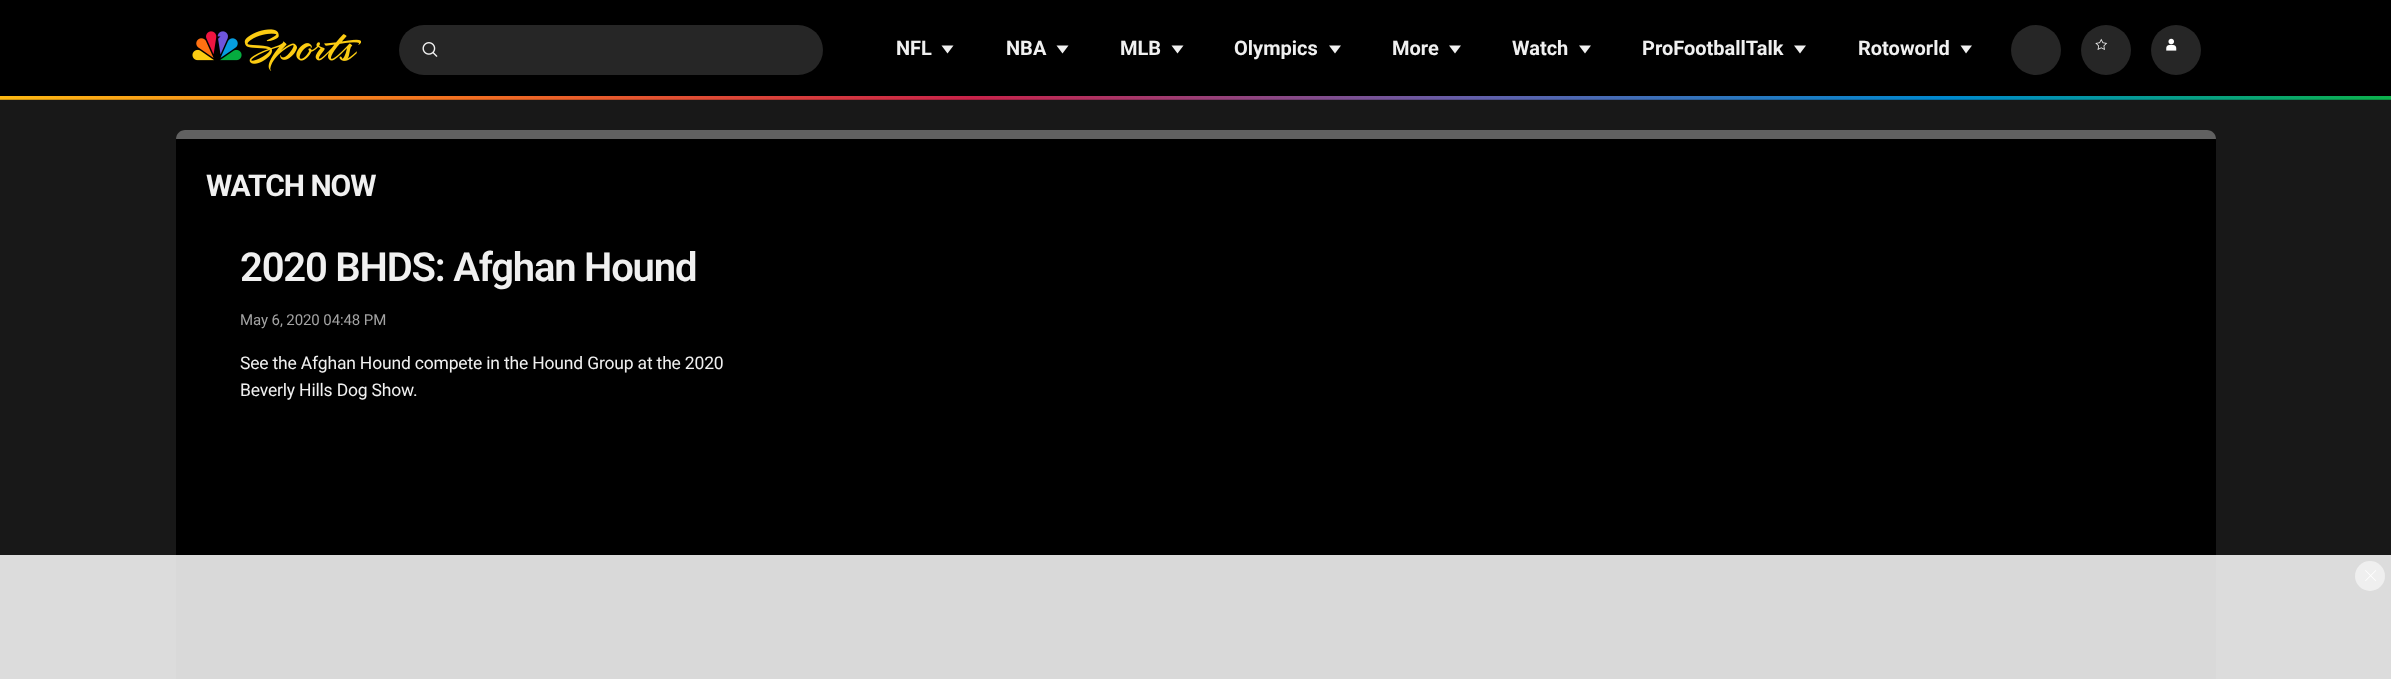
<svg xmlns="http://www.w3.org/2000/svg" width="2391" height="679" viewBox="0 0 2391 679">
  <rect width="100%" height="100%" fill="#181818"/>
  <rect x="0" y="0" width="2391" height="100" fill="#000000"/>
  <image x="192" y="29" width="169" height="42" href="img1.png"/>
  <rect x="399" y="25" width="424" height="50" rx="25" fill="#262626"/>
  <image x="422" y="42" width="16" height="15" href="img2.png"/>
  <text x="896" y="55" font-family="Roboto" font-size="20" font-weight="bold" fill="#f0f0f0">NFL</text>
  <path d="M947.5 53.5L941.5 45.5H953.5Z" fill="#f0f0f0"/>
  <text x="1006" y="55" font-family="Roboto" font-size="20" font-weight="bold" fill="#f0f0f0">NBA</text>
  <path d="M1062.5 53.5L1056.5 45.5H1068.5Z" fill="#f0f0f0"/>
  <text x="1120" y="55" font-family="Roboto" font-size="20" font-weight="bold" fill="#f0f0f0">MLB</text>
  <path d="M1177.5 53.5L1171.5 45.5H1183.5Z" fill="#f0f0f0"/>
  <text x="1234" y="55" font-family="Roboto" font-size="20" font-weight="bold" fill="#f0f0f0">Olympics</text>
  <path d="M1335 53.5L1329 45.5H1341Z" fill="#f0f0f0"/>
  <text x="1392" y="55" font-family="Roboto" font-size="20" font-weight="bold" fill="#f0f0f0">More</text>
  <path d="M1455 53.5L1449 45.5H1461Z" fill="#f0f0f0"/>
  <text x="1512" y="55" font-family="Roboto" font-size="20" font-weight="bold" fill="#f0f0f0">Watch</text>
  <path d="M1585 53.5L1579 45.5H1591Z" fill="#f0f0f0"/>
  <text x="1642" y="55" font-family="Roboto" font-size="20" font-weight="bold" fill="#f0f0f0">ProFootballTalk</text>
  <path d="M1800 53.5L1794 45.5H1806Z" fill="#f0f0f0"/>
  <text x="1858" y="55" font-family="Roboto" font-size="20" font-weight="bold" fill="#f0f0f0">Rotoworld</text>
  <path d="M1966 53.5L1960.5 45.5H1972Z" fill="#f0f0f0"/>
  <circle cx="2036" cy="50" r="25" fill="#262626"/>
  <circle cx="2106" cy="50" r="25" fill="#262626"/>
  <image x="2095" y="38" width="13" height="12" href="img3.png"/>
  <circle cx="2176" cy="50" r="25" fill="#262626"/>
  <image x="2166" y="38" width="11" height="13" href="img4.png"/>
  <image x="0" y="96" width="2391" height="4" href="img5.png"/>
  <rect x="176" y="130" width="2040" height="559" rx="10" fill="#000000"/>
  <path d="M185 130H2207C2212 130 2216 134 2216 139H176C176 134 180 130 185 130Z" fill="#616161"/>
  <text x="206" y="196" font-family="Roboto" font-size="30" font-weight="bold" letter-spacing="-1" fill="#f0f0f0">WATCH NOW</text>
  <text x="240" y="281" font-family="Roboto" font-size="40" font-weight="600" letter-spacing="-1.2" fill="#f0f0f0">2020 BHDS: Afghan Hound</text>
  <text x="240" y="325" font-family="Roboto" font-size="15" letter-spacing="-0.1" fill="#a3a3a3">May 6, 2020 04:48 PM</text>
  <text x="240" y="369" font-family="Roboto" font-size="17.5" letter-spacing="-0.18" fill="#f0f0f0">See the Afghan Hound compete in the Hound Group at the 2020</text>
  <text x="240" y="396" font-family="Roboto" font-size="17.5" letter-spacing="-0.18" fill="#f0f0f0">Beverly Hills Dog Show.</text>
  <rect x="0" y="555" width="2391" height="124" fill="#ffffff" fill-opacity="0.85"/>
  <circle cx="2370" cy="576" r="15" fill="#efefef"/>
  <image x="2365" y="570" width="11" height="11" href="img6.png"/>
</svg>
